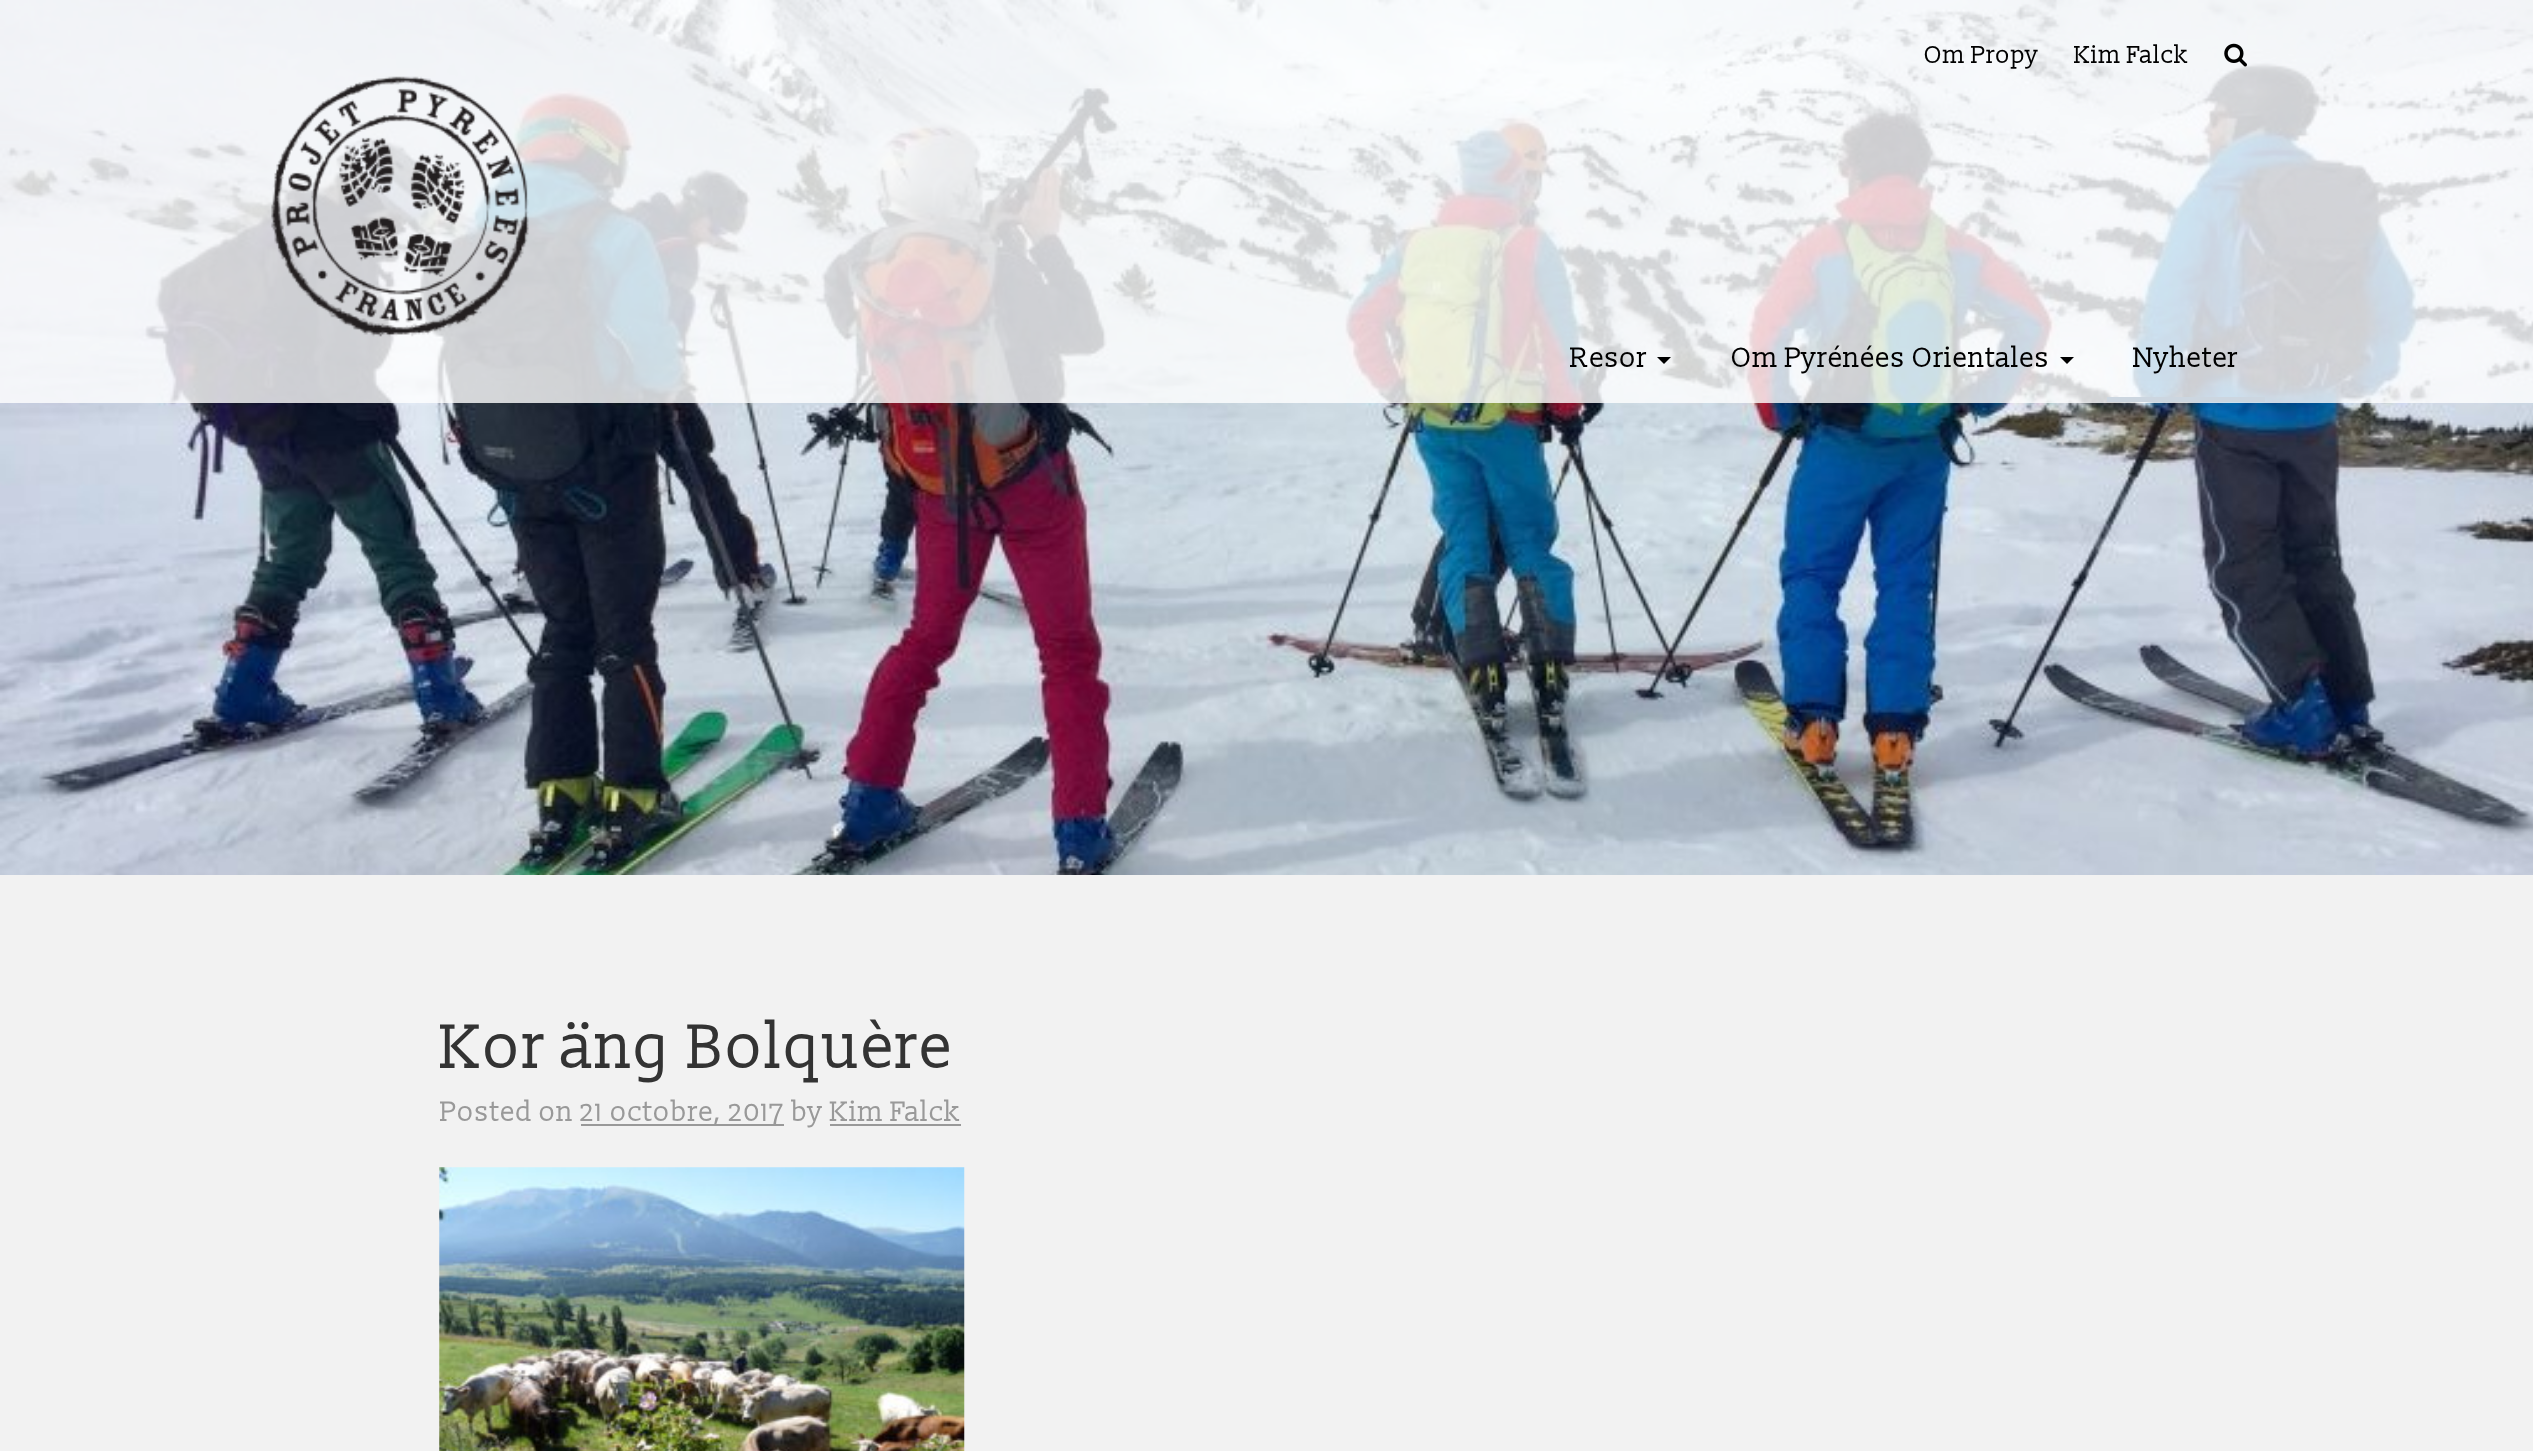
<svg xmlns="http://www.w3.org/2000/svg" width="2533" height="1451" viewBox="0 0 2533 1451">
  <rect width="100%" height="100%" fill="#f2f2f2"/>
  <image x="0" y="0" width="2533" height="875" href="img3.png"/>
  <rect x="0" y="0" width="2533" height="403" fill="#ffffff" fill-opacity="0.8"/>
  <text x="1924" y="63" font-family="'Slabo 13px'" font-size="24.5" fill="#000000">Om Propy</text>
  <text x="2074" y="63" font-family="'Slabo 13px'" font-size="24.5" fill="#000000">Kim Falck</text>
  <image x="2224" y="43" width="23" height="24" href="img1.png"/>
  <image x="271" y="76" width="258" height="261" href="img2.png"/>
  <text x="1570" y="367" font-family="'Slabo 13px'" font-size="28" fill="#000000">Resor</text>
  <path d="M1657 357H1671L1664 364Z" fill="#000000"/>
  <text x="1731" y="367" font-family="'Slabo 13px'" font-size="28" fill="#000000">Om Pyrénées Orientales</text>
  <path d="M2060 357H2074L2067 364Z" fill="#000000"/>
  <text x="2133" y="367" font-family="'Slabo 13px'" font-size="28" fill="#000000">Nyheter</text>
  <rect x="2107" y="397" width="158" height="5" fill="#ccd6e0"/>
  <text x="440" y="1068" font-family="'Slabo 13px'" font-size="63" fill="#333333">Kor äng Bolquère</text>
  <text x="440" y="1121" font-family="'Slabo 13px'" font-size="28" fill="#999999">Posted on</text>
  <rect x="581" y="1124" width="203" height="2" fill="#999999"/>
  <text x="580" y="1121" font-family="'Slabo 13px'" font-size="28" fill="#999999">21 octobre, 2017 by Kim Falck</text>
  <rect x="830" y="1124" width="131" height="2" fill="#999999"/>
  <image x="439" y="1167" width="526" height="284" href="img4.png"/>
</svg>
